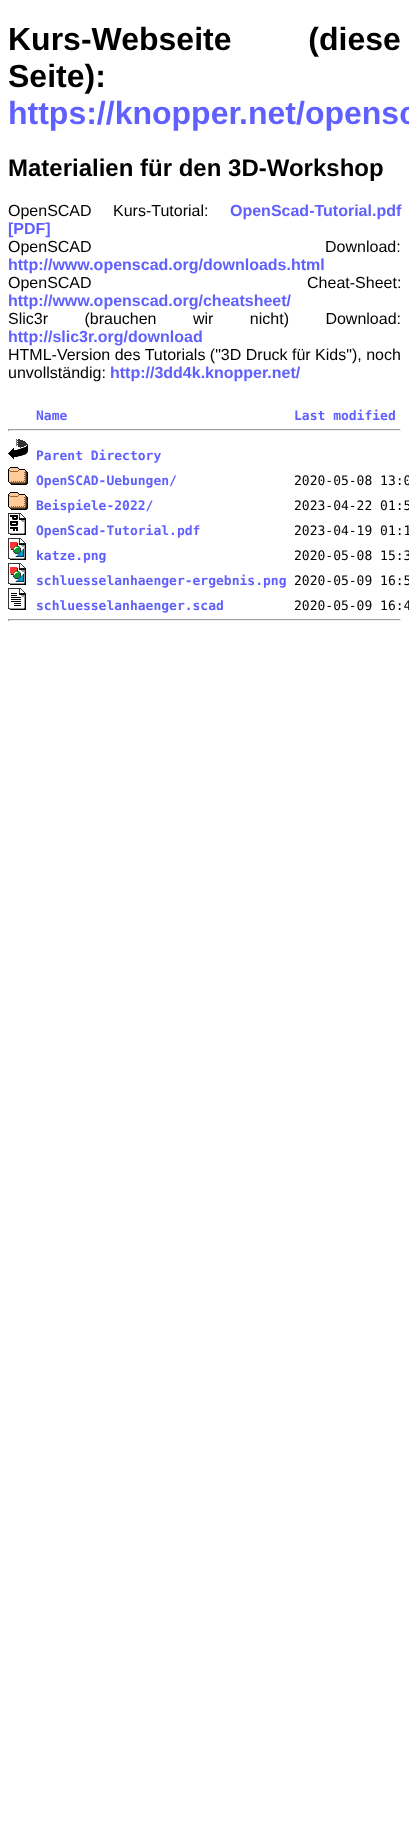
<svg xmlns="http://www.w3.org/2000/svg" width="409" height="1843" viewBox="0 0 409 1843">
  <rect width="100%" height="100%" fill="#ffffff"/>
  <text x="8" y="50" word-spacing="68" font-family="Liberation Sans" font-size="32" font-weight="bold" fill="#000000">Kurs-Webseite (diese</text>
  <text x="8" y="87" font-family="Liberation Sans" font-size="32" font-weight="bold" fill="#000000">Seite):</text>
  <text x="8" y="124" font-family="Liberation Sans" font-size="32" font-weight="bold" fill="#6060ff">https://knopper.net/opensc</text>
  <text x="8" y="176" font-family="Liberation Sans" font-size="24" font-weight="bold" fill="#000000">Materialien für den 3D-Workshop</text>
  <text x="8" y="216" word-spacing="17" font-family="Liberation Sans" font-size="16" fill="#000000">OpenSCAD Kurs-Tutorial:</text>
  <text x="230" y="216" font-family="Liberation Sans" font-size="16" font-weight="bold" fill="#6060ff">OpenScad-Tutorial.pdf</text>
  <text x="8" y="234" font-family="Liberation Sans" font-size="16" font-weight="bold" fill="#6060ff">[PDF]</text>
  <text x="8" y="252" word-spacing="229" font-family="Liberation Sans" font-size="16" fill="#000000">OpenSCAD Download:</text>
  <text x="8" y="270" font-family="Liberation Sans" font-size="16" font-weight="bold" fill="#6060ff">http://www.openscad.org/downloads.html</text>
  <text x="8" y="288" word-spacing="211" font-family="Liberation Sans" font-size="16" fill="#000000">OpenSCAD Cheat-Sheet:</text>
  <text x="8" y="306" font-family="Liberation Sans" font-size="16" font-weight="bold" fill="#6060ff">http://www.openscad.org/cheatsheet/</text>
  <text x="8" y="324" word-spacing="32" font-family="Liberation Sans" font-size="16" fill="#000000">Slic3r (brauchen wir nicht) Download:</text>
  <text x="8" y="342" font-family="Liberation Sans" font-size="16" font-weight="bold" fill="#6060ff">http://slic3r.org/download</text>
  <text x="8" y="360" font-family="Liberation Sans" font-size="16" fill="#000000">HTML-Version des Tutorials ("3D Druck für Kids"), noch</text>
  <text x="8" y="378" font-family="Liberation Sans" font-size="16" fill="#000000">unvollständig:</text>
  <text x="110" y="378" font-family="Liberation Sans" font-size="16" font-weight="bold" fill="#6060ff">http://3dd4k.knopper.net/</text>
  <text x="36" y="420" font-family="DejaVu Sans Mono" font-size="13" font-weight="bold" fill="#6060ff">Name</text>
  <text x="294" y="420" font-family="DejaVu Sans Mono" font-size="13" font-weight="bold" fill="#6060ff">Last modified</text>
  <rect x="8" y="429" width="393" height="1" fill="#9f9f9f"/>
  <rect x="400" y="429" width="1" height="2" fill="#eeeeee"/>
  <rect x="8" y="430" width="393" height="1" fill="#eeeeee"/>
  <rect x="8" y="429" width="1" height="2" fill="#9f9f9f"/>
  <image x="8" y="439" width="20" height="20" href="img1.png"/>
  <text x="36" y="460" font-family="DejaVu Sans Mono" font-size="13" font-weight="bold" fill="#6060ff">Parent Directory</text>
  <image x="8" y="467" width="20" height="18" href="img2.png"/>
  <text x="36" y="485" font-family="DejaVu Sans Mono" font-size="13" font-weight="bold" fill="#6060ff">OpenSCAD-Uebungen/</text>
  <text x="294" y="485" font-family="DejaVu Sans Mono" font-size="13" fill="#000000">2020-05-08 13:0</text>
  <image x="8" y="492" width="20" height="18" href="img2.png"/>
  <text x="36" y="510" font-family="DejaVu Sans Mono" font-size="13" font-weight="bold" fill="#6060ff">Beispiele-2022/</text>
  <text x="294" y="510" font-family="DejaVu Sans Mono" font-size="13" fill="#000000">2023-04-22 01:5</text>
  <image x="8" y="513" width="18" height="22" href="img3.png"/>
  <text x="36" y="535" font-family="DejaVu Sans Mono" font-size="13" font-weight="bold" fill="#6060ff">OpenScad-Tutorial.pdf</text>
  <text x="294" y="535" font-family="DejaVu Sans Mono" font-size="13" fill="#000000">2023-04-19 01:1</text>
  <image x="8" y="538" width="18" height="22" href="img4.png"/>
  <text x="36" y="560" font-family="DejaVu Sans Mono" font-size="13" font-weight="bold" fill="#6060ff">katze.png</text>
  <text x="294" y="560" font-family="DejaVu Sans Mono" font-size="13" fill="#000000">2020-05-08 15:3</text>
  <image x="8" y="563" width="18" height="22" href="img4.png"/>
  <text x="36" y="585" font-family="DejaVu Sans Mono" font-size="13" font-weight="bold" fill="#6060ff">schluesselanhaenger-ergebnis.png</text>
  <text x="294" y="585" font-family="DejaVu Sans Mono" font-size="13" fill="#000000">2020-05-09 16:5</text>
  <image x="8" y="588" width="18" height="22" href="img5.png"/>
  <text x="36" y="610" font-family="DejaVu Sans Mono" font-size="13" font-weight="bold" fill="#6060ff">schluesselanhaenger.scad</text>
  <text x="294" y="610" font-family="DejaVu Sans Mono" font-size="13" fill="#000000">2020-05-09 16:4</text>
  <rect x="8" y="619" width="393" height="1" fill="#9f9f9f"/>
  <rect x="400" y="619" width="1" height="2" fill="#eeeeee"/>
  <rect x="8" y="620" width="393" height="1" fill="#eeeeee"/>
  <rect x="8" y="619" width="1" height="2" fill="#9f9f9f"/>
</svg>
